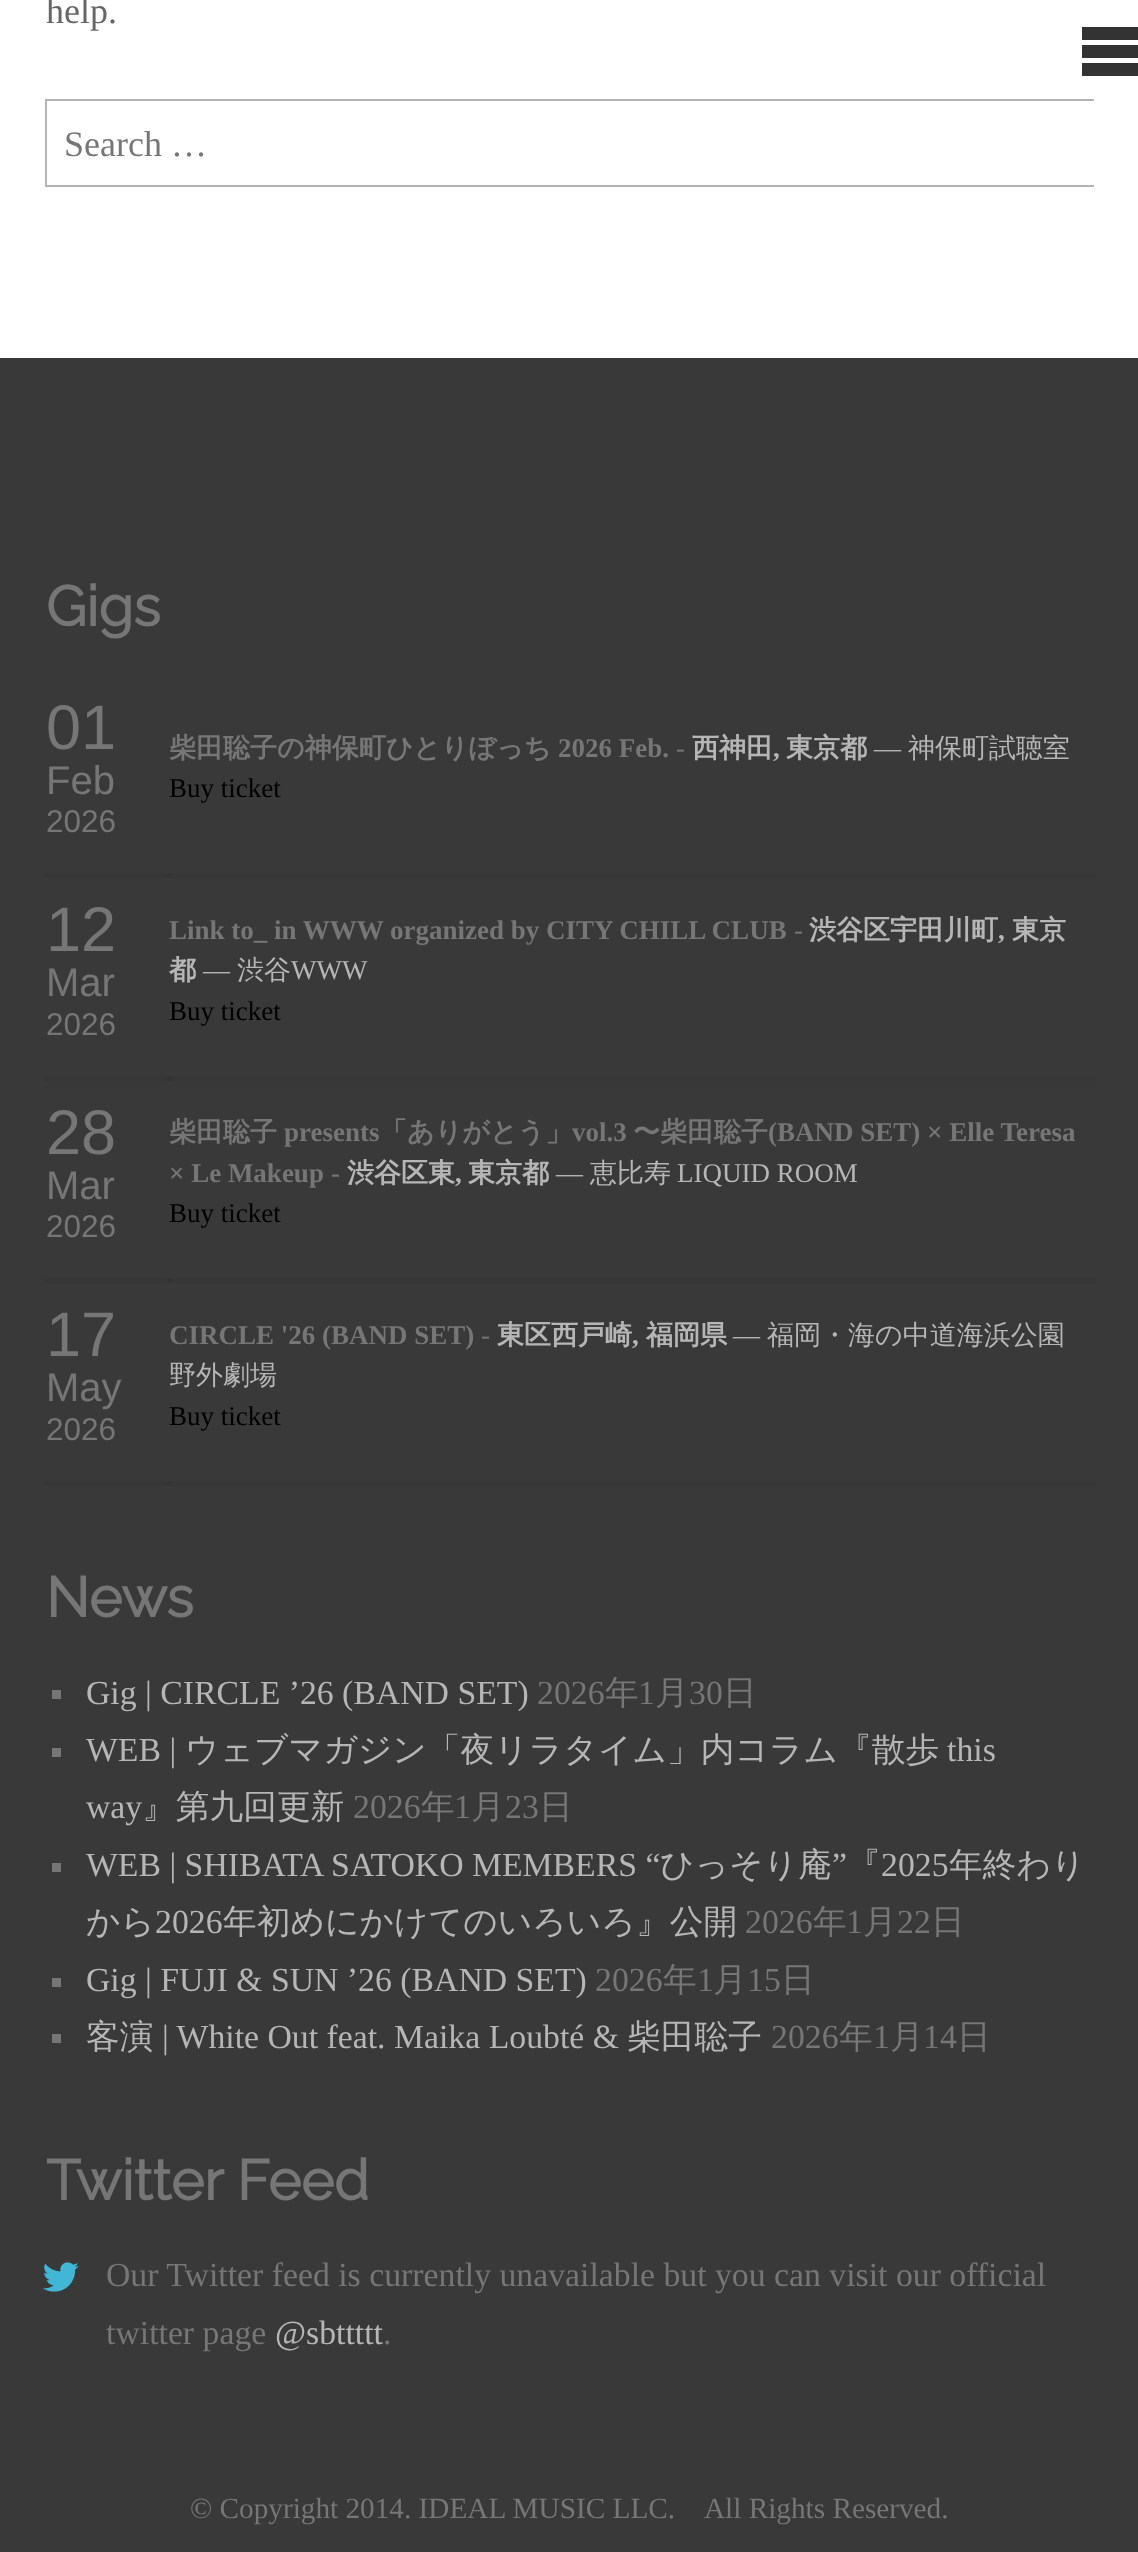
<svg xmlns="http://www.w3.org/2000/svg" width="1138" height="2552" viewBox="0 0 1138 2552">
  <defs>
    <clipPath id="clip1"><rect x="45" y="0" width="1049" height="223"/></clipPath>
  </defs>
  <rect width="100%" height="100%" fill="#ffffff"/>
  <text x="46" y="23" font-family="Liberation Serif" font-size="36" fill="#666666">help.</text>
  <g clip-path="url(#clip1)">
    <rect x="46" y="100" width="1083" height="86" fill="none" stroke="#b3b3b3" stroke-width="2"/>
  </g>
  <text x="64" y="156" font-family="Liberation Serif" font-size="36" fill="#767676">Search …</text>
  <rect x="0" y="358" width="1138" height="2194" fill="#393939"/>
  <rect x="43" y="873" width="1053" height="5" fill="#363636"/>
  <rect x="43" y="1076" width="1053" height="5" fill="#363636"/>
  <rect x="43" y="1278" width="1053" height="5" fill="#363636"/>
  <rect x="43" y="1481" width="1053" height="5" fill="#363636"/>
  <text x="46" y="626" font-family="Raleway" font-size="56.25" font-weight="bold" fill="#767676">Gigs</text>
  <text x="46" y="749" font-family="Liberation Sans" font-size="63" fill="#767676">01</text>
  <text x="46" y="794" font-family="Liberation Sans" font-size="40" fill="#767676">Feb</text>
  <text x="46" y="832" font-family="Liberation Sans" font-size="31.5" fill="#767676">2026</text>
  <rect x="167" y="873" width="4" height="5" fill="#333333"/>
  <text x="169" y="757" font-family="WenQuanYi Zen Hei" font-size="27" font-weight="bold" fill="#767676">柴田聡子の神保町ひとりぼっち</text>
  <text x="558" y="757" font-family="Liberation Serif" font-size="27" font-weight="bold" fill="#767676">2026 Feb.</text>
  <text x="676" y="757" font-family="Liberation Serif" font-size="27" fill="#767676">-</text>
  <text x="692" y="757" font-family="WenQuanYi Zen Hei" font-size="27" font-weight="bold" fill="#b6b6b6">西神田</text>
  <text x="786" y="757" font-family="WenQuanYi Zen Hei" font-size="27" font-weight="bold" fill="#b6b6b6">東京都</text>
  <text x="874" y="757" font-family="Liberation Serif" font-size="27" fill="#b6b6b6">—</text>
  <text x="908" y="757" font-family="WenQuanYi Zen Hei" font-size="27" font-weight="500" fill="#b6b6b6">神保町試聴室</text>
  <text x="773" y="757" font-family="Liberation Serif" font-size="27" font-weight="bold" fill="#b6b6b6">,</text>
  <text x="169" y="797" font-family="Liberation Serif" font-size="27" fill="#000000">Buy ticket</text>
  <text x="46" y="951" font-family="Liberation Sans" font-size="63" fill="#767676">12</text>
  <text x="46" y="996" font-family="Liberation Sans" font-size="40" fill="#767676">Mar</text>
  <text x="46" y="1035" font-family="Liberation Sans" font-size="31.5" fill="#767676">2026</text>
  <rect x="167" y="1076" width="4" height="5" fill="#333333"/>
  <text x="169" y="939" font-family="Liberation Serif" font-size="27" font-weight="bold" fill="#767676">Link to_ in WWW organized by CITY CHILL CLUB</text>
  <text x="794" y="939" font-family="Liberation Serif" font-size="27" fill="#767676">-</text>
  <text x="809" y="939" font-family="WenQuanYi Zen Hei" font-size="27" font-weight="bold" fill="#b6b6b6">渋谷区宇田川町</text>
  <text x="1012" y="939" font-family="WenQuanYi Zen Hei" font-size="27" font-weight="bold" fill="#b6b6b6">東京</text>
  <text x="998" y="939" font-family="Liberation Serif" font-size="27" font-weight="bold" fill="#b6b6b6">,</text>
  <text x="169" y="979" font-family="WenQuanYi Zen Hei" font-size="27" font-weight="bold" fill="#b6b6b6">都</text>
  <text x="203" y="979" font-family="Liberation Serif" font-size="27" fill="#b6b6b6">—</text>
  <text x="237" y="979" font-family="WenQuanYi Zen Hei" font-size="27" font-weight="500" fill="#b6b6b6">渋谷</text>
  <text x="291" y="979" font-family="Liberation Serif" font-size="27" fill="#b6b6b6">WWW</text>
  <text x="169" y="1020" font-family="Liberation Serif" font-size="27" fill="#000000">Buy ticket</text>
  <text x="46" y="1154" font-family="Liberation Sans" font-size="63" fill="#767676">28</text>
  <text x="46" y="1199" font-family="Liberation Sans" font-size="40" fill="#767676">Mar</text>
  <text x="46" y="1237" font-family="Liberation Sans" font-size="31.5" fill="#767676">2026</text>
  <rect x="167" y="1278" width="4" height="5" fill="#333333"/>
  <text x="169" y="1141" font-family="WenQuanYi Zen Hei" font-size="27" font-weight="bold" fill="#767676">柴田聡子</text>
  <text x="284" y="1141" font-family="Liberation Serif" font-size="27" font-weight="bold" fill="#767676">presents</text>
  <text x="380" y="1141" font-family="WenQuanYi Zen Hei" font-size="27" font-weight="bold" fill="#767676">「ありがとう」</text>
  <text x="572" y="1141" font-family="Liberation Serif" font-size="27" font-weight="bold" fill="#767676">vol.3</text>
  <text x="633" y="1141" font-family="WenQuanYi Zen Hei" font-size="27" font-weight="bold" fill="#767676">〜柴田聡子</text>
  <text x="768" y="1141" font-family="Liberation Serif" font-size="27" font-weight="bold" fill="#767676">(BAND SET) × Elle Teresa</text>
  <text x="169" y="1182" font-family="Liberation Serif" font-size="27" font-weight="bold" fill="#767676">× Le Makeup</text>
  <text x="331" y="1182" font-family="Liberation Serif" font-size="27" fill="#767676">-</text>
  <text x="347" y="1182" font-family="WenQuanYi Zen Hei" font-size="27" font-weight="bold" fill="#b6b6b6">渋谷区東</text>
  <text x="468" y="1182" font-family="WenQuanYi Zen Hei" font-size="27" font-weight="bold" fill="#b6b6b6">東京都</text>
  <text x="556" y="1182" font-family="Liberation Serif" font-size="27" fill="#b6b6b6">—</text>
  <text x="590" y="1182" font-family="WenQuanYi Zen Hei" font-size="27" font-weight="500" fill="#b6b6b6">恵比寿</text>
  <text x="677" y="1182" font-family="Liberation Serif" font-size="27" fill="#b6b6b6">LIQUID ROOM</text>
  <text x="455" y="1182" font-family="Liberation Serif" font-size="27" font-weight="bold" fill="#b6b6b6">,</text>
  <text x="169" y="1222" font-family="Liberation Serif" font-size="27" fill="#000000">Buy ticket</text>
  <text x="46" y="1356" font-family="Liberation Sans" font-size="63" fill="#767676">17</text>
  <text x="46" y="1401" font-family="Liberation Sans" font-size="40" fill="#767676">May</text>
  <text x="46" y="1440" font-family="Liberation Sans" font-size="31.5" fill="#767676">2026</text>
  <rect x="167" y="1481" width="4" height="5" fill="#333333"/>
  <text x="169" y="1344" font-family="Liberation Serif" font-size="27" font-weight="bold" fill="#767676">CIRCLE '26 (BAND SET)</text>
  <text x="481" y="1344" font-family="Liberation Serif" font-size="27" fill="#767676">-</text>
  <text x="497" y="1344" font-family="WenQuanYi Zen Hei" font-size="27" font-weight="bold" fill="#b6b6b6">東区西戸崎</text>
  <text x="646" y="1344" font-family="WenQuanYi Zen Hei" font-size="27" font-weight="bold" fill="#b6b6b6">福岡県</text>
  <text x="733" y="1344" font-family="Liberation Serif" font-size="27" fill="#b6b6b6">—</text>
  <text x="767" y="1344" font-family="WenQuanYi Zen Hei" font-size="27" font-weight="500" fill="#b6b6b6">福岡・海の中道海浜公園</text>
  <text x="632" y="1344" font-family="Liberation Serif" font-size="27" font-weight="bold" fill="#b6b6b6">,</text>
  <text x="169" y="1384" font-family="WenQuanYi Zen Hei" font-size="27" font-weight="500" fill="#b6b6b6">野外劇場</text>
  <text x="169" y="1425" font-family="Liberation Serif" font-size="27" fill="#000000">Buy ticket</text>
  <text x="46" y="1617" font-family="Raleway" font-size="56.25" font-weight="bold" fill="#767676">News</text>
  <rect x="52" y="1690" width="9" height="9" fill="#767676"/>
  <text x="86" y="1704" font-family="Liberation Serif" font-size="33.75" fill="#b6b6b6">Gig | CIRCLE ’26 (BAND SET)</text>
  <text x="537" y="1704" font-family="Liberation Serif" font-size="33.75" fill="#767676">2026</text>
  <text x="605" y="1704" font-family="WenQuanYi Zen Hei" font-size="33.75" font-weight="500" fill="#767676">年</text>
  <text x="638" y="1704" font-family="Liberation Serif" font-size="33.75" fill="#767676">1</text>
  <text x="655" y="1704" font-family="WenQuanYi Zen Hei" font-size="33.75" font-weight="500" fill="#767676">月</text>
  <text x="689" y="1704" font-family="Liberation Serif" font-size="33.75" fill="#767676">30</text>
  <text x="723" y="1704" font-family="WenQuanYi Zen Hei" font-size="33.75" font-weight="500" fill="#767676">日</text>
  <rect x="52" y="1748" width="9" height="9" fill="#767676"/>
  <text x="86" y="1761" font-family="Liberation Serif" font-size="33.75" fill="#b6b6b6">WEB |</text>
  <text x="185" y="1761" font-family="WenQuanYi Zen Hei" font-size="33.75" font-weight="500" fill="#b6b6b6">ウェブマガジン「夜リラタイム」内コラム『散歩</text>
  <text x="947" y="1761" font-family="Liberation Serif" font-size="33.75" fill="#b6b6b6">this</text>
  <text x="86" y="1818" font-family="Liberation Serif" font-size="33.75" fill="#b6b6b6">way</text>
  <text x="142" y="1818" font-family="WenQuanYi Zen Hei" font-size="33.75" font-weight="500" fill="#b6b6b6">』第九回更新</text>
  <text x="353" y="1818" font-family="Liberation Serif" font-size="33.75" fill="#767676">2026</text>
  <text x="421" y="1818" font-family="WenQuanYi Zen Hei" font-size="33.75" font-weight="500" fill="#767676">年</text>
  <text x="454" y="1818" font-family="Liberation Serif" font-size="33.75" fill="#767676">1</text>
  <text x="471" y="1818" font-family="WenQuanYi Zen Hei" font-size="33.75" font-weight="500" fill="#767676">月</text>
  <text x="505" y="1818" font-family="Liberation Serif" font-size="33.75" fill="#767676">23</text>
  <text x="539" y="1818" font-family="WenQuanYi Zen Hei" font-size="33.75" font-weight="500" fill="#767676">日</text>
  <rect x="52" y="1863" width="9" height="9" fill="#767676"/>
  <text x="86" y="1876" font-family="Liberation Serif" font-size="33.75" fill="#b6b6b6">WEB | SHIBATA SATOKO MEMBERS “</text>
  <text x="660" y="1876" font-family="WenQuanYi Zen Hei" font-size="33.75" font-weight="500" fill="#b6b6b6">ひっそり庵</text>
  <text x="832" y="1876" font-family="Liberation Serif" font-size="33.75" fill="#b6b6b6">”</text>
  <text x="847" y="1876" font-family="WenQuanYi Zen Hei" font-size="33.75" font-weight="500" fill="#b6b6b6">『</text>
  <text x="881" y="1876" font-family="Liberation Serif" font-size="33.75" fill="#b6b6b6">2025</text>
  <text x="949" y="1876" font-family="WenQuanYi Zen Hei" font-size="33.75" font-weight="500" fill="#b6b6b6">年終わり</text>
  <text x="86" y="1933" font-family="WenQuanYi Zen Hei" font-size="33.75" font-weight="500" fill="#b6b6b6">から</text>
  <text x="155" y="1933" font-family="Liberation Serif" font-size="33.75" fill="#b6b6b6">2026</text>
  <text x="223" y="1933" font-family="WenQuanYi Zen Hei" font-size="33.75" font-weight="500" fill="#b6b6b6">年初めにかけてのいろいろ』公開</text>
  <text x="745" y="1933" font-family="Liberation Serif" font-size="33.75" fill="#767676">2026</text>
  <text x="813" y="1933" font-family="WenQuanYi Zen Hei" font-size="33.75" font-weight="500" fill="#767676">年</text>
  <text x="846" y="1933" font-family="Liberation Serif" font-size="33.75" fill="#767676">1</text>
  <text x="863" y="1933" font-family="WenQuanYi Zen Hei" font-size="33.75" font-weight="500" fill="#767676">月</text>
  <text x="897" y="1933" font-family="Liberation Serif" font-size="33.75" fill="#767676">22</text>
  <text x="931" y="1933" font-family="WenQuanYi Zen Hei" font-size="33.75" font-weight="500" fill="#767676">日</text>
  <rect x="52" y="1978" width="9" height="9" fill="#767676"/>
  <text x="86" y="1991" font-family="Liberation Serif" font-size="33.75" fill="#b6b6b6">Gig | FUJI &amp; SUN ’26 (BAND SET)</text>
  <text x="595" y="1991" font-family="Liberation Serif" font-size="33.75" fill="#767676">2026</text>
  <text x="663" y="1991" font-family="WenQuanYi Zen Hei" font-size="33.75" font-weight="500" fill="#767676">年</text>
  <text x="697" y="1991" font-family="Liberation Serif" font-size="33.75" fill="#767676">1</text>
  <text x="713" y="1991" font-family="WenQuanYi Zen Hei" font-size="33.75" font-weight="500" fill="#767676">月</text>
  <text x="747" y="1991" font-family="Liberation Serif" font-size="33.75" fill="#767676">15</text>
  <text x="781" y="1991" font-family="WenQuanYi Zen Hei" font-size="33.75" font-weight="500" fill="#767676">日</text>
  <rect x="52" y="2034" width="9" height="9" fill="#767676"/>
  <text x="86" y="2048" font-family="WenQuanYi Zen Hei" font-size="33.75" font-weight="500" fill="#b6b6b6">客演</text>
  <text x="162" y="2048" font-family="Liberation Serif" font-size="33.75" fill="#b6b6b6">| White Out feat. Maika Loubté &amp;</text>
  <text x="627" y="2048" font-family="WenQuanYi Zen Hei" font-size="33.75" font-weight="500" fill="#b6b6b6">柴田聡子</text>
  <text x="771" y="2048" font-family="Liberation Serif" font-size="33.75" fill="#767676">2026</text>
  <text x="839" y="2048" font-family="WenQuanYi Zen Hei" font-size="33.75" font-weight="500" fill="#767676">年</text>
  <text x="873" y="2048" font-family="Liberation Serif" font-size="33.75" fill="#767676">1</text>
  <text x="890" y="2048" font-family="WenQuanYi Zen Hei" font-size="33.75" font-weight="500" fill="#767676">月</text>
  <text x="923" y="2048" font-family="Liberation Serif" font-size="33.75" fill="#767676">14</text>
  <text x="957" y="2048" font-family="WenQuanYi Zen Hei" font-size="33.75" font-weight="500" fill="#767676">日</text>
  <text x="46" y="2200" font-family="Raleway" font-size="56.25" font-weight="bold" fill="#767676">Twitter Feed</text>
  <image x="43" y="2262" width="36" height="30" href="img1.png"/>
  <text x="106" y="2286" font-family="Liberation Serif" font-size="33.75" fill="#767676">Our Twitter feed is currently unavailable but you can visit our official</text>
  <text x="106" y="2344" font-family="Liberation Serif" font-size="33.75" fill="#767676">twitter page</text>
  <text x="275" y="2344" font-family="Liberation Serif" font-size="33.75" fill="#b6b6b6">@sbttttt</text>
  <text x="383" y="2344" font-family="Liberation Serif" font-size="33.75" fill="#767676">.</text>
  <text x="190" y="2518" font-family="Liberation Serif" font-size="29.25" fill="#767676">© Copyright 2014. IDEAL MUSIC LLC.</text>
  <text x="704" y="2518" font-family="Liberation Serif" font-size="29.25" fill="#767676">All Rights Reserved.</text>
  <path d="M1082 27H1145V40H1082ZM1082 45H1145V58H1082ZM1082 63H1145V76H1082Z" fill="#333333"/>
</svg>
